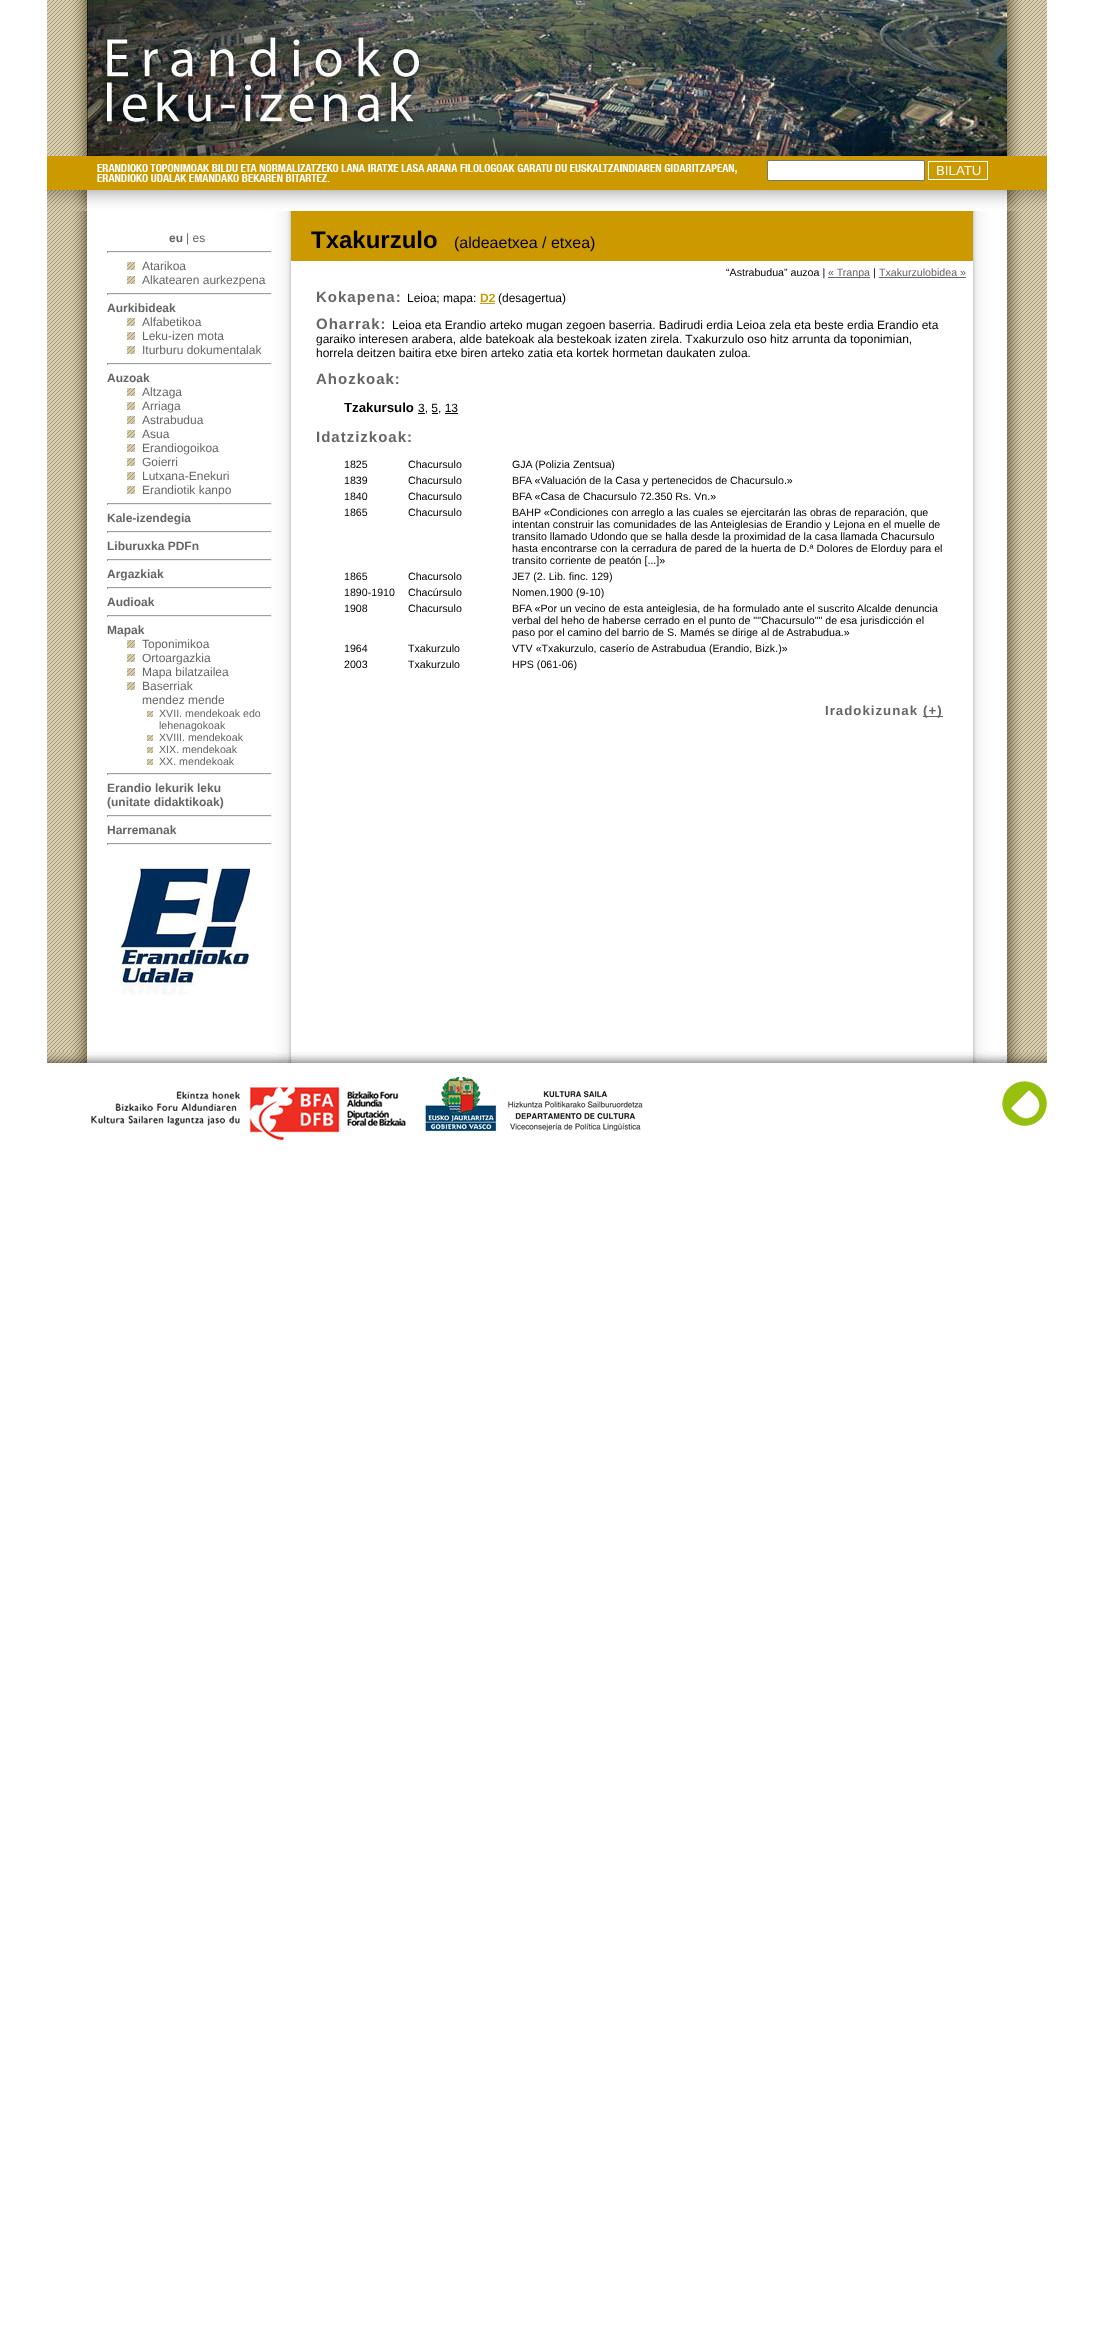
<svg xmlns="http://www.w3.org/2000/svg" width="1094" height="2349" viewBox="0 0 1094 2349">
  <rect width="100%" height="100%" fill="#ffffff"/>
  <image x="47" y="0" width="1000" height="1051" href="img1.png"/>
  <image x="87" y="0" width="920" height="156" href="img2.png"/>
  <image x="47" y="156" width="1000" height="55" href="img3.png"/>
  <rect x="767.5" y="160.5" width="157" height="20" rx="1.5" fill="#ffffff" stroke="#767676"/>
  <rect x="928.5" y="161.5" width="59" height="18" fill="none" stroke="#ffffff"/>
  <text x="936" y="175" font-family="Liberation Sans" font-size="13.25" fill="#ffffff">BILATU</text>
  <text x="169" y="242" font-family="Liberation Sans" font-size="12" font-weight="bold" fill="#666666">eu</text>
  <text x="186" y="242" font-family="Liberation Sans" font-size="12" fill="#666666">| es</text>
  <rect x="107" y="251" width="165" height="1" fill="#9f9f9f"/>
  <rect x="271" y="251" width="1" height="2" fill="#eeeeee"/>
  <rect x="107" y="252" width="165" height="1" fill="#eeeeee"/>
  <rect x="107" y="251" width="1" height="2" fill="#9f9f9f"/>
  <image x="127" y="262" width="8" height="8" href="img4.png"/>
  <text x="142" y="270" font-family="Liberation Sans" font-size="12" fill="#666666">Atarikoa</text>
  <image x="127" y="276" width="8" height="8" href="img4.png"/>
  <text x="142" y="284" font-family="Liberation Sans" font-size="12" fill="#666666">Alkatearen aurkezpena</text>
  <rect x="107" y="293" width="165" height="1" fill="#9f9f9f"/>
  <rect x="271" y="293" width="1" height="2" fill="#eeeeee"/>
  <rect x="107" y="294" width="165" height="1" fill="#eeeeee"/>
  <rect x="107" y="293" width="1" height="2" fill="#9f9f9f"/>
  <text x="107" y="312" font-family="Liberation Sans" font-size="12" font-weight="bold" fill="#666666">Aurkibideak</text>
  <image x="127" y="318" width="8" height="8" href="img4.png"/>
  <text x="142" y="326" font-family="Liberation Sans" font-size="12" fill="#666666">Alfabetikoa</text>
  <image x="127" y="332" width="8" height="8" href="img4.png"/>
  <text x="142" y="340" font-family="Liberation Sans" font-size="12" fill="#666666">Leku-izen mota</text>
  <image x="127" y="346" width="8" height="8" href="img4.png"/>
  <text x="142" y="354" font-family="Liberation Sans" font-size="12" fill="#666666">Iturburu dokumentalak</text>
  <rect x="107" y="363" width="165" height="1" fill="#9f9f9f"/>
  <rect x="271" y="363" width="1" height="2" fill="#eeeeee"/>
  <rect x="107" y="364" width="165" height="1" fill="#eeeeee"/>
  <rect x="107" y="363" width="1" height="2" fill="#9f9f9f"/>
  <text x="107" y="382" font-family="Liberation Sans" font-size="12" font-weight="bold" fill="#666666">Auzoak</text>
  <image x="127" y="388" width="8" height="8" href="img4.png"/>
  <text x="142" y="396" font-family="Liberation Sans" font-size="12" fill="#666666">Altzaga</text>
  <image x="127" y="402" width="8" height="8" href="img4.png"/>
  <text x="142" y="410" font-family="Liberation Sans" font-size="12" fill="#666666">Arriaga</text>
  <image x="127" y="416" width="8" height="8" href="img4.png"/>
  <text x="142" y="424" font-family="Liberation Sans" font-size="12" fill="#666666">Astrabudua</text>
  <image x="127" y="430" width="8" height="8" href="img4.png"/>
  <text x="142" y="438" font-family="Liberation Sans" font-size="12" fill="#666666">Asua</text>
  <image x="127" y="444" width="8" height="8" href="img4.png"/>
  <text x="142" y="452" font-family="Liberation Sans" font-size="12" fill="#666666">Erandiogoikoa</text>
  <image x="127" y="458" width="8" height="8" href="img4.png"/>
  <text x="142" y="466" font-family="Liberation Sans" font-size="12" fill="#666666">Goierri</text>
  <image x="127" y="472" width="8" height="8" href="img4.png"/>
  <text x="142" y="480" font-family="Liberation Sans" font-size="12" fill="#666666">Lutxana-Enekuri</text>
  <image x="127" y="486" width="8" height="8" href="img4.png"/>
  <text x="142" y="494" font-family="Liberation Sans" font-size="12" fill="#666666">Erandiotik kanpo</text>
  <rect x="107" y="503" width="165" height="1" fill="#9f9f9f"/>
  <rect x="271" y="503" width="1" height="2" fill="#eeeeee"/>
  <rect x="107" y="504" width="165" height="1" fill="#eeeeee"/>
  <rect x="107" y="503" width="1" height="2" fill="#9f9f9f"/>
  <text x="107" y="522" font-family="Liberation Sans" font-size="12" font-weight="bold" fill="#666666">Kale-izendegia</text>
  <rect x="107" y="531" width="165" height="1" fill="#9f9f9f"/>
  <rect x="271" y="531" width="1" height="2" fill="#eeeeee"/>
  <rect x="107" y="532" width="165" height="1" fill="#eeeeee"/>
  <rect x="107" y="531" width="1" height="2" fill="#9f9f9f"/>
  <text x="107" y="550" font-family="Liberation Sans" font-size="12" font-weight="bold" fill="#666666">Liburuxka PDFn</text>
  <rect x="107" y="559" width="165" height="1" fill="#9f9f9f"/>
  <rect x="271" y="559" width="1" height="2" fill="#eeeeee"/>
  <rect x="107" y="560" width="165" height="1" fill="#eeeeee"/>
  <rect x="107" y="559" width="1" height="2" fill="#9f9f9f"/>
  <text x="107" y="578" font-family="Liberation Sans" font-size="12" font-weight="bold" fill="#666666">Argazkiak</text>
  <rect x="107" y="587" width="165" height="1" fill="#9f9f9f"/>
  <rect x="271" y="587" width="1" height="2" fill="#eeeeee"/>
  <rect x="107" y="588" width="165" height="1" fill="#eeeeee"/>
  <rect x="107" y="587" width="1" height="2" fill="#9f9f9f"/>
  <text x="107" y="606" font-family="Liberation Sans" font-size="12" font-weight="bold" fill="#666666">Audioak</text>
  <rect x="107" y="615" width="165" height="1" fill="#9f9f9f"/>
  <rect x="271" y="615" width="1" height="2" fill="#eeeeee"/>
  <rect x="107" y="616" width="165" height="1" fill="#eeeeee"/>
  <rect x="107" y="615" width="1" height="2" fill="#9f9f9f"/>
  <text x="107" y="634" font-family="Liberation Sans" font-size="12" font-weight="bold" fill="#666666">Mapak</text>
  <image x="127" y="640" width="8" height="8" href="img4.png"/>
  <text x="142" y="648" font-family="Liberation Sans" font-size="12" fill="#666666">Toponimikoa</text>
  <image x="127" y="654" width="8" height="8" href="img4.png"/>
  <text x="142" y="662" font-family="Liberation Sans" font-size="12" fill="#666666">Ortoargazkia</text>
  <image x="127" y="668" width="8" height="8" href="img4.png"/>
  <text x="142" y="676" font-family="Liberation Sans" font-size="12" fill="#666666">Mapa bilatzailea</text>
  <image x="127" y="682" width="8" height="8" href="img4.png"/>
  <text x="142" y="690" font-family="Liberation Sans" font-size="12" fill="#666666">Baserriak</text>
  <text x="142" y="704" font-family="Liberation Sans" font-size="12" fill="#666666">mendez mende</text>
  <image x="147" y="711" width="6" height="6" href="img5.png"/>
  <text x="159" y="717" font-family="Liberation Sans" font-size="10.65" fill="#666666">XVII. mendekoak edo</text>
  <text x="159" y="729" font-family="Liberation Sans" font-size="10.65" fill="#666666">lehenagokoak</text>
  <image x="147" y="735" width="6" height="6" href="img5.png"/>
  <text x="159" y="741" font-family="Liberation Sans" font-size="10.65" fill="#666666">XVIII. mendekoak</text>
  <image x="147" y="747" width="6" height="6" href="img5.png"/>
  <text x="159" y="753" font-family="Liberation Sans" font-size="10.65" fill="#666666">XIX. mendekoak</text>
  <image x="147" y="759" width="6" height="6" href="img5.png"/>
  <text x="159" y="765" font-family="Liberation Sans" font-size="10.65" fill="#666666">XX. mendekoak</text>
  <rect x="107" y="773" width="165" height="1" fill="#9f9f9f"/>
  <rect x="271" y="773" width="1" height="2" fill="#eeeeee"/>
  <rect x="107" y="774" width="165" height="1" fill="#eeeeee"/>
  <rect x="107" y="773" width="1" height="2" fill="#9f9f9f"/>
  <text x="107" y="792" font-family="Liberation Sans" font-size="12" font-weight="bold" fill="#666666">Erandio lekurik leku</text>
  <text x="107" y="806" font-family="Liberation Sans" font-size="12" font-weight="bold" fill="#666666">(unitate didaktikoak)</text>
  <rect x="107" y="815" width="165" height="1" fill="#9f9f9f"/>
  <rect x="271" y="815" width="1" height="2" fill="#eeeeee"/>
  <rect x="107" y="816" width="165" height="1" fill="#eeeeee"/>
  <rect x="107" y="815" width="1" height="2" fill="#9f9f9f"/>
  <text x="107" y="834" font-family="Liberation Sans" font-size="12" font-weight="bold" fill="#666666">Harremanak</text>
  <rect x="107" y="843" width="165" height="1" fill="#9f9f9f"/>
  <rect x="271" y="843" width="1" height="2" fill="#eeeeee"/>
  <rect x="107" y="844" width="165" height="1" fill="#eeeeee"/>
  <rect x="107" y="843" width="1" height="2" fill="#9f9f9f"/>
  <image x="120" y="860" width="130" height="135" href="img6.png"/>
  <rect x="291" y="211" width="682" height="50" fill="#cc9900"/>
  <text x="311" y="248" font-family="Liberation Sans" font-size="24" font-weight="bold" fill="#000000">Txakurzulo</text>
  <text x="454" y="248" font-family="Liberation Sans" font-size="16" fill="#000000">(aldeaetxea / etxea)</text>
  <text x="726" y="276" font-family="Liberation Sans" font-size="10.65" fill="#000000">“Astrabudua” auzoa |</text>
  <rect x="828" y="277" width="42" height="1" fill="#666666"/>
  <text x="828" y="276" font-family="Liberation Sans" font-size="10.65" fill="#666666">« Tranpa</text>
  <text x="873" y="276" font-family="Liberation Sans" font-size="10.65" fill="#000000">|</text>
  <text x="879" y="276" font-family="Liberation Sans" font-size="10.65" fill="#666666">Txakurzulobidea »</text>
  <rect x="879" y="277" width="87" height="1" fill="#666666"/>
  <text x="316" y="302" font-family="Liberation Sans" font-size="15" font-weight="bold" letter-spacing="1" fill="#666666">Kokapena:</text>
  <text x="407" y="302" font-family="Liberation Sans" font-size="12" fill="#000000">Leioa; mapa:</text>
  <text x="480" y="302" font-family="Liberation Sans" font-size="12" font-weight="bold" fill="#cc9900">D2</text>
  <rect x="480" y="303" width="15" height="1" fill="#cc9900"/>
  <text x="498" y="302" font-family="Liberation Sans" font-size="12" fill="#000000">(desagertua)</text>
  <text x="316" y="329" font-family="Liberation Sans" font-size="15" font-weight="bold" letter-spacing="1" fill="#666666">Oharrak:</text>
  <text x="392" y="329" font-family="Liberation Sans" font-size="12" fill="#000000">Leioa eta Erandio arteko mugan zegoen baserria. Badirudi erdia Leioa zela eta beste erdia Erandio eta</text>
  <text x="316" y="343" font-family="Liberation Sans" font-size="12" fill="#000000">garaiko interesen arabera, alde batekoak ala bestekoak izaten zirela. Txakurzulo oso hitz arrunta da toponimian,</text>
  <text x="316" y="357" font-family="Liberation Sans" font-size="12" fill="#000000">horrela deitzen baitira etxe biren arteko zatia eta kortek hormetan daukaten zuloa.</text>
  <text x="316" y="384" font-family="Liberation Sans" font-size="15" font-weight="bold" letter-spacing="1" fill="#666666">Ahozkoak:</text>
  <text x="344" y="412" font-family="Liberation Sans" font-size="13.25" font-weight="bold" fill="#000000">Tzakursulo</text>
  <rect x="418" y="413" width="7" height="1" fill="#000000"/>
  <text x="418" y="412" font-family="Liberation Sans" font-size="12" fill="#000000">3, 5, 13</text>
  <rect x="432" y="413" width="6" height="1" fill="#000000"/>
  <rect x="445" y="413" width="13" height="1" fill="#000000"/>
  <text x="316" y="442" font-family="Liberation Sans" font-size="15" font-weight="bold" letter-spacing="1" fill="#666666">Idatzizkoak:</text>
  <text x="344" y="468" font-family="Liberation Sans" font-size="10.65" fill="#000000">1825</text>
  <text x="408" y="468" font-family="Liberation Sans" font-size="10.65" fill="#000000">Chacursulo</text>
  <text x="512" y="468" font-family="Liberation Sans" font-size="10.65" fill="#000000">GJA (Polizia Zentsua)</text>
  <text x="344" y="484" font-family="Liberation Sans" font-size="10.65" fill="#000000">1839</text>
  <text x="408" y="484" font-family="Liberation Sans" font-size="10.65" fill="#000000">Chacursulo</text>
  <text x="512" y="484" font-family="Liberation Sans" font-size="10.65" fill="#000000">BFA «Valuación de la Casa y pertenecidos de Chacursulo.»</text>
  <text x="344" y="500" font-family="Liberation Sans" font-size="10.65" fill="#000000">1840</text>
  <text x="408" y="500" font-family="Liberation Sans" font-size="10.65" fill="#000000">Chacursulo</text>
  <text x="512" y="500" font-family="Liberation Sans" font-size="10.65" fill="#000000">BFA «Casa de Chacursulo 72.350 Rs. Vn.»</text>
  <text x="344" y="516" font-family="Liberation Sans" font-size="10.65" fill="#000000">1865</text>
  <text x="408" y="516" font-family="Liberation Sans" font-size="10.65" fill="#000000">Chacursulo</text>
  <text x="512" y="516" font-family="Liberation Sans" font-size="10.65" fill="#000000">BAHP «Condiciones con arreglo a las cuales se ejercitarán las obras de reparación, que</text>
  <text x="512" y="528" font-family="Liberation Sans" font-size="10.65" fill="#000000">intentan construir las comunidades de las Anteiglesias de Erandio y Lejona en el muelle de</text>
  <text x="512" y="540" font-family="Liberation Sans" font-size="10.65" fill="#000000">transito llamado Udondo que se halla desde la proximidad de la casa llamada Chacursulo</text>
  <text x="512" y="552" font-family="Liberation Sans" font-size="10.65" fill="#000000">hasta encontrarse con la cerradura de pared de la huerta de D.ª Dolores de Elorduy para el</text>
  <text x="512" y="564" font-family="Liberation Sans" font-size="10.65" fill="#000000">transito corriente de peatón [...]»</text>
  <text x="344" y="580" font-family="Liberation Sans" font-size="10.65" fill="#000000">1865</text>
  <text x="408" y="580" font-family="Liberation Sans" font-size="10.65" fill="#000000">Chacursolo</text>
  <text x="512" y="580" font-family="Liberation Sans" font-size="10.65" fill="#000000">JE7 (2. Lib. finc. 129)</text>
  <text x="344" y="596" font-family="Liberation Sans" font-size="10.65" fill="#000000">1890-1910</text>
  <text x="408" y="596" font-family="Liberation Sans" font-size="10.65" fill="#000000">Chacúrsulo</text>
  <text x="512" y="596" font-family="Liberation Sans" font-size="10.65" fill="#000000">Nomen.1900 (9-10)</text>
  <text x="344" y="612" font-family="Liberation Sans" font-size="10.65" fill="#000000">1908</text>
  <text x="408" y="612" font-family="Liberation Sans" font-size="10.65" fill="#000000">Chacursulo</text>
  <text x="512" y="612" font-family="Liberation Sans" font-size="10.65" fill="#000000">BFA «Por un vecino de esta anteiglesia, de ha formulado ante el suscrito Alcalde denuncia</text>
  <text x="512" y="624" font-family="Liberation Sans" font-size="10.65" fill="#000000">verbal del heho de haberse cerrado en el punto de ""Chacursulo"" de esa jurisdicción el</text>
  <text x="512" y="636" font-family="Liberation Sans" font-size="10.65" fill="#000000">paso por el camino del barrio de S. Mamés se dirige al de Astrabudua.»</text>
  <text x="344" y="652" font-family="Liberation Sans" font-size="10.65" fill="#000000">1964</text>
  <text x="408" y="652" font-family="Liberation Sans" font-size="10.65" fill="#000000">Txakurzulo</text>
  <text x="512" y="652" font-family="Liberation Sans" font-size="10.65" fill="#000000">VTV «Txakurzulo, caserío de Astrabudua (Erandio, Bizk.)»</text>
  <text x="344" y="668" font-family="Liberation Sans" font-size="10.65" fill="#000000">2003</text>
  <text x="408" y="668" font-family="Liberation Sans" font-size="10.65" fill="#000000">Txakurzulo</text>
  <text x="512" y="668" font-family="Liberation Sans" font-size="10.65" fill="#000000">HPS (061-06)</text>
  <text x="825" y="715" font-family="Liberation Sans" font-size="13.25" font-weight="bold" letter-spacing="1" fill="#666666">Iradokizunak</text>
  <rect x="923" y="716" width="20" height="1" fill="#666666"/>
  <text x="923" y="715" font-family="Liberation Sans" font-size="13.25" font-weight="bold" letter-spacing="1" fill="#666666">(+)</text>
  <image x="47" y="1051" width="1000" height="113" href="img7.png"/>
  <image x="1002" y="1081" width="45" height="45" href="img8.png"/>
</svg>
